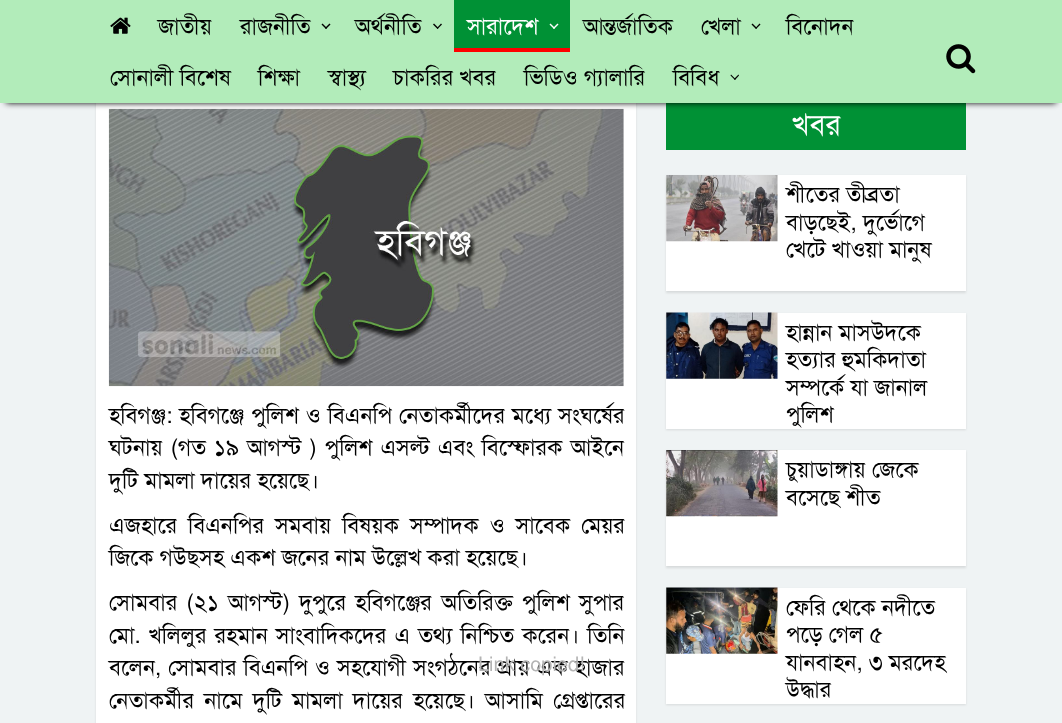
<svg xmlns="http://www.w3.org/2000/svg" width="1062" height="723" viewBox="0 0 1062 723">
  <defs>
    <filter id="blur1" x="-50%" y="-200%" width="200%" height="500%"><feGaussianBlur stdDeviation="1"/></filter>
    <filter id="blur2" x="-50%" y="-200%" width="200%" height="500%"><feGaussianBlur stdDeviation="3"/></filter>
    <clipPath id="clip1"><rect x="784" y="175" width="182" height="116"/></clipPath>
    <clipPath id="clip2"><rect x="784" y="313" width="182" height="116"/></clipPath>
    <clipPath id="clip3"><rect x="784" y="450" width="182" height="116"/></clipPath>
  </defs>
  <rect width="100%" height="100%" fill="#eff3f4"/>
  <rect x="96" y="-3" width="540" height="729" fill="#000000" fill-opacity="0.1" filter="url(#blur1)"/>
  <rect x="96" y="103" width="540" height="620" fill="#ffffff"/>
  <image x="108" y="108" width="516" height="279" href="img3.png"/>
  <rect x="666" y="103" width="300" height="47" fill="#009135"/>
  <rect x="6" y="13" width="1050" height="90" fill="#000000" filter="url(#blur2)"/>
  <rect x="0" y="0" width="1062" height="103" fill="#b2ecba"/>
  <image x="110" y="17" width="21" height="17" href="img1.png"/>
  <text x="158" y="34" font-family="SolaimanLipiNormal" font-size="22.5" fill="#000000">জাতীয়</text>
  <text x="240" y="34" font-family="SolaimanLipiNormal" font-size="22.5" fill="#000000">রাজনীতি</text>
  <path d="M329.5 23.5L330.5 24.5L326 29L325 28Z" fill="#000000"/>
  <path d="M322.5 23.5L327 28L326 29L321.5 24.5Z" fill="#000000"/>
  <text x="355" y="34" font-family="SolaimanLipiNormal" font-size="22.5" fill="#000000">অর্থনীতি</text>
  <path d="M441 23.5L442 24.5L437.5 29L437 28Z" fill="#000000"/>
  <path d="M434 23.5L438.5 28L437.5 29L433 24.5Z" fill="#000000"/>
  <rect x="454" y="0" width="116" height="48" fill="#009135"/>
  <text x="467" y="34" font-family="SolaimanLipiNormal" font-size="22.5" fill="#ffffff">সারাদেশ</text>
  <path d="M557.5 23.5L558.5 24.5L554 29L553 28Z" fill="#ffffff"/>
  <path d="M550.5 23.5L555 28L554 29L549.5 24.5Z" fill="#ffffff"/>
  <rect x="454" y="48" width="116" height="4" fill="#ff0000"/>
  <text x="583" y="34" font-family="SolaimanLipiNormal" font-size="22.5" fill="#000000">আন্তর্জাতিক</text>
  <text x="701" y="34" font-family="SolaimanLipiNormal" font-size="22.5" fill="#000000">খেলা</text>
  <path d="M759.5 23.5L760.5 24.5L756 29L755.5 28Z" fill="#000000"/>
  <path d="M752.5 23.5L757 28L756 29L751.5 24.5Z" fill="#000000"/>
  <text x="786" y="34" font-family="SolaimanLipiNormal" font-size="22.5" fill="#000000">বিনোদন</text>
  <text x="110" y="85" font-family="SolaimanLipiNormal" font-size="22.5" fill="#000000">সোনালী বিশেষ</text>
  <text x="258" y="85" font-family="SolaimanLipiNormal" font-size="22.5" fill="#000000">শিক্ষা</text>
  <text x="328" y="85" font-family="SolaimanLipiNormal" font-size="22.5" fill="#000000">স্বাস্থ্য</text>
  <text x="393" y="85" font-family="SolaimanLipiNormal" font-size="22.5" fill="#000000">চাকরির খবর</text>
  <text x="524" y="85" font-family="SolaimanLipiNormal" font-size="22.5" fill="#000000">ভিডিও গ্যালারি</text>
  <text x="673" y="85" font-family="SolaimanLipiNormal" font-size="22.5" fill="#000000">বিবিধ</text>
  <path d="M738.5 74.5L739 75.5L735 80L734 79Z" fill="#000000"/>
  <path d="M731 74.5L735.5 79L735 80L730.5 75.5Z" fill="#000000"/>
  <image x="946" y="44" width="30" height="30" href="img2.png"/>
  <text x="109" y="423" word-spacing="0.75" font-family="SolaimanLipiNormal" font-size="22.5" fill="#000000">হবিগঞ্জ: হবিগঞ্জে পুলিশ ও বিএনপি নেতাকর্মীদের মধ্যে সংঘর্ষের</text>
  <text x="109" y="455" word-spacing="1.75" font-family="SolaimanLipiNormal" font-size="22.5" fill="#000000">ঘটনায় (গত ১৯ আগস্ট ) পুলিশ এসল্ট এবং বিস্ফোরক আইনে</text>
  <text x="109" y="488" font-family="SolaimanLipiNormal" font-size="22.5" fill="#000000">দুটি মামলা দায়ের হয়েছে।</text>
  <text x="109" y="533" word-spacing="4.75" font-family="SolaimanLipiNormal" font-size="22.5" fill="#000000">এজহারে বিএনপির সমবায় বিষয়ক সম্পাদক ও সাবেক মেয়র</text>
  <text x="109" y="565" font-family="SolaimanLipiNormal" font-size="22.5" fill="#000000">জিকে গউছসহ একশ জনের নাম উল্লেখ করা হয়েছে।</text>
  <text x="109" y="610" word-spacing="3" font-family="SolaimanLipiNormal" font-size="22.5" fill="#000000">সোমবার (২১ আগস্ট) দুপুরে হবিগঞ্জের অতিরিক্ত পুলিশ সুপার</text>
  <text x="109" y="643" word-spacing="1.75" font-family="SolaimanLipiNormal" font-size="22.5" fill="#000000">মো. খলিলুর রহমান সাংবাদিকদের এ তথ্য নিশ্চিত করেন। তিনি</text>
  <text x="109" y="675" word-spacing="0.75" font-family="SolaimanLipiNormal" font-size="22.5" fill="#000000">বলেন, সোমবার বিএনপি ও সহযোগী সংগঠনের প্রায় এক হাজার</text>
  <text x="109" y="708" word-spacing="4" font-family="SolaimanLipiNormal" font-size="22.5" fill="#000000">নেতাকর্মীর নামে দুটি মামলা দায়ের হয়েছে। আসামি গ্রেপ্তারের</text>
  <text x="792" y="135" font-family="SolaimanLipiNormal" font-size="30" fill="#ffffff">খবর</text>
  <rect x="666" y="176" width="300" height="117" fill="#000000" fill-opacity="0.1" filter="url(#blur1)"/>
  <rect x="666" y="175" width="300" height="116" fill="#ffffff"/>
  <image x="666" y="175" width="112" height="67" href="img4.png"/>
  <g clip-path="url(#clip1)">
    <text x="786" y="202" font-family="SolaimanLipiNormal" font-size="22.5" fill="#000000">শীতের তীব্রতা</text>
  </g>
  <text x="786" y="230" font-family="SolaimanLipiNormal" font-size="22.5" fill="#000000">বাড়ছেই, দুর্ভোগে</text>
  <text x="786" y="257" font-family="SolaimanLipiNormal" font-size="22.5" fill="#000000">খেটে খাওয়া মানুষ</text>
  <rect x="666" y="314" width="300" height="116" fill="#000000" fill-opacity="0.1" filter="url(#blur1)"/>
  <rect x="666" y="313" width="300" height="116" fill="#ffffff"/>
  <image x="666" y="312" width="112" height="67" href="img5.png"/>
  <text x="786" y="340" font-family="SolaimanLipiNormal" font-size="22.5" fill="#000000">হান্নান মাসউদকে</text>
  <text x="786" y="367" font-family="SolaimanLipiNormal" font-size="22.5" fill="#000000">হত্যার হুমকিদাতা</text>
  <text x="786" y="395" font-family="SolaimanLipiNormal" font-size="22.5" fill="#000000">সম্পর্কে যা জানাল</text>
  <g clip-path="url(#clip2)">
    <text x="786" y="422" font-family="SolaimanLipiNormal" font-size="22.5" fill="#000000">পুলিশ</text>
  </g>
  <rect x="666" y="451" width="300" height="117" fill="#000000" fill-opacity="0.1" filter="url(#blur1)"/>
  <rect x="666" y="450" width="300" height="116" fill="#ffffff"/>
  <image x="666" y="450" width="112" height="67" href="img6.png"/>
  <g clip-path="url(#clip3)">
    <text x="786" y="477" font-family="SolaimanLipiNormal" font-size="22.5" fill="#000000">চুয়াডাঙ্গায় জেকে</text>
  </g>
  <text x="786" y="505" font-family="SolaimanLipiNormal" font-size="22.5" fill="#000000">বসেছে শীত</text>
  <rect x="666" y="589" width="300" height="116" fill="#000000" fill-opacity="0.1" filter="url(#blur1)"/>
  <rect x="666" y="588" width="300" height="116" fill="#ffffff"/>
  <image x="666" y="587" width="112" height="67" href="img7.png"/>
  <text x="786" y="615" font-family="SolaimanLipiNormal" font-size="22.5" fill="#000000">ফেরি থেকে নদীতে</text>
  <text x="786" y="642" font-family="SolaimanLipiNormal" font-size="22.5" fill="#000000">পড়ে গেল ৫</text>
  <text x="786" y="670" font-family="SolaimanLipiNormal" font-size="22.5" fill="#000000">যানবাহন, ৩ মরদেহ</text>
  <text x="786" y="697" font-family="SolaimanLipiNormal" font-size="22.5" fill="#000000">উদ্ধার</text>
  <text x="478" y="671" font-family="SolaimanLipiNormal" font-size="20" fill="#b4b4b4">Link copied!</text>
</svg>
